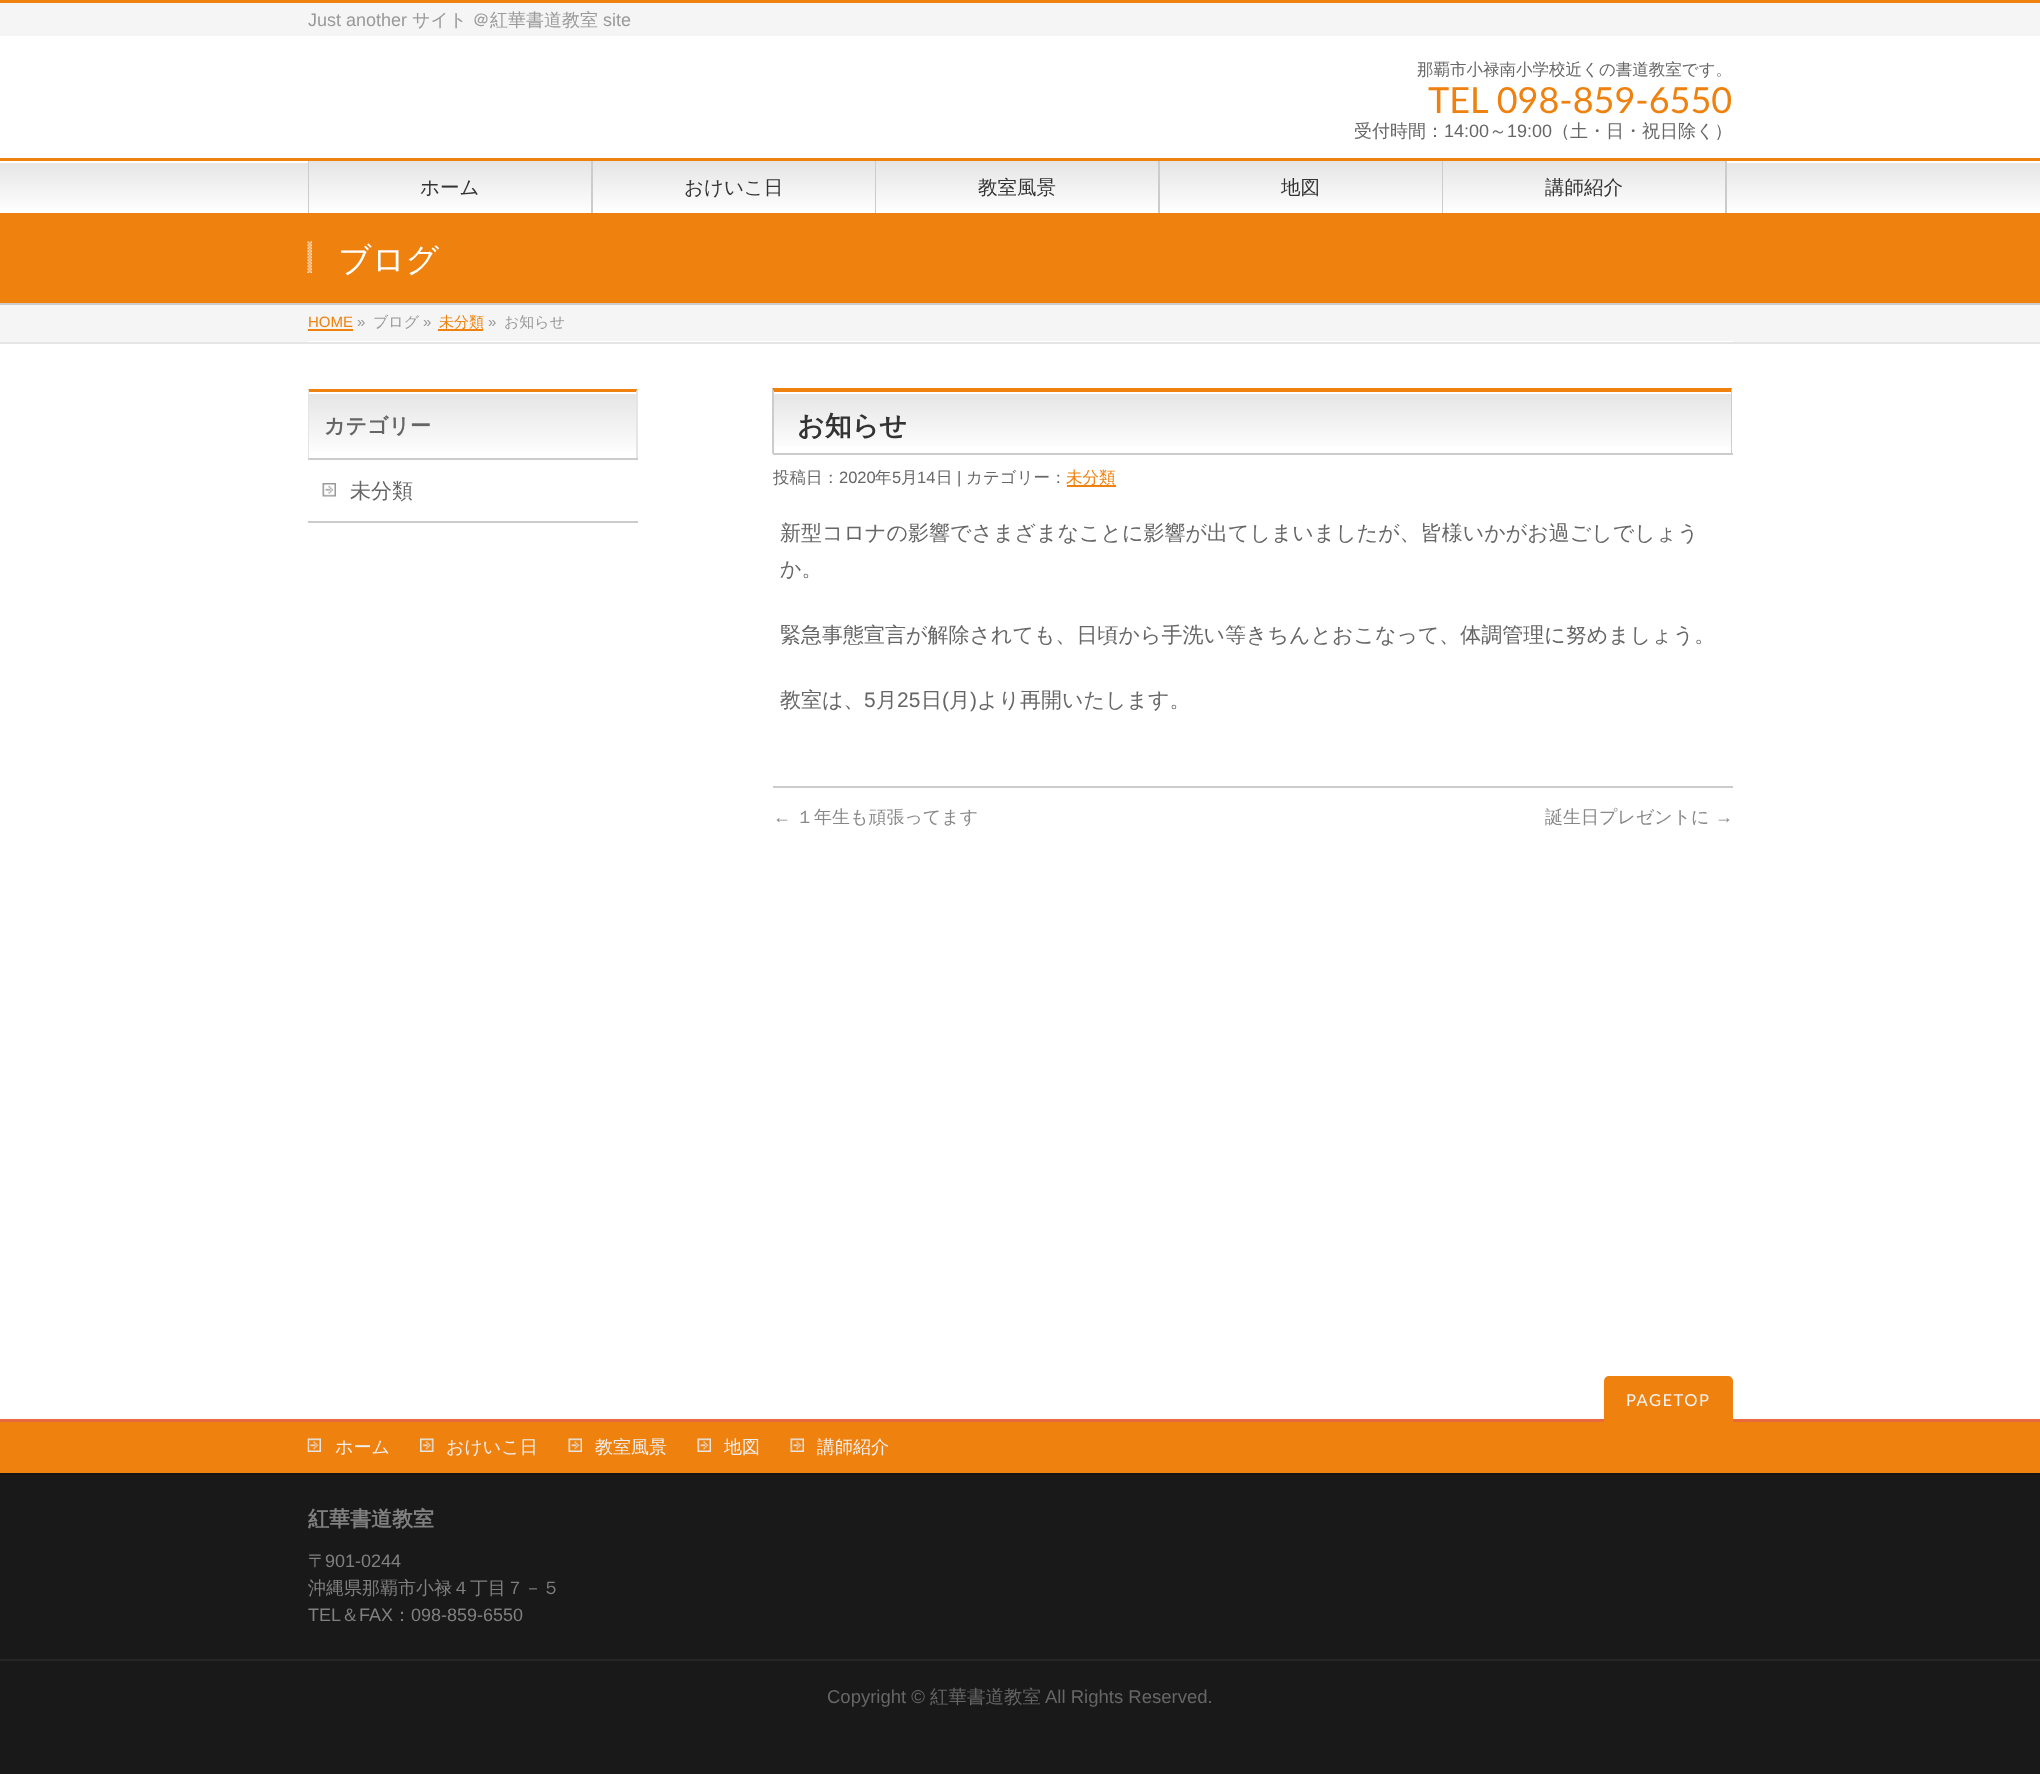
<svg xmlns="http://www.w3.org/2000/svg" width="2040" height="1774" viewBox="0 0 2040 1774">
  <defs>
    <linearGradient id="g1" gradientUnits="userSpaceOnUse" x1="0" y1="161" x2="0" y2="213"><stop offset="0" stop-color="#e5e5e5"/><stop offset="1" stop-color="#ffffff"/></linearGradient>
    <linearGradient id="g2" gradientUnits="userSpaceOnUse" x1="309" y1="161" x2="309" y2="213"><stop offset="0" stop-color="#e5e5e5"/><stop offset="1" stop-color="#ffffff"/></linearGradient>
    <linearGradient id="g3" gradientUnits="userSpaceOnUse" x1="593" y1="161" x2="593" y2="213"><stop offset="0" stop-color="#e5e5e5"/><stop offset="1" stop-color="#ffffff"/></linearGradient>
    <linearGradient id="g4" gradientUnits="userSpaceOnUse" x1="876" y1="161" x2="876" y2="213"><stop offset="0" stop-color="#e5e5e5"/><stop offset="1" stop-color="#ffffff"/></linearGradient>
    <linearGradient id="g5" gradientUnits="userSpaceOnUse" x1="1160" y1="161" x2="1160" y2="213"><stop offset="0" stop-color="#e5e5e5"/><stop offset="1" stop-color="#ffffff"/></linearGradient>
    <linearGradient id="g6" gradientUnits="userSpaceOnUse" x1="1443" y1="161" x2="1443" y2="213"><stop offset="0" stop-color="#e5e5e5"/><stop offset="1" stop-color="#ffffff"/></linearGradient>
    <linearGradient id="g7" gradientUnits="userSpaceOnUse" x1="309" y1="392" x2="309" y2="458"><stop offset="0" stop-color="#e5e5e5"/><stop offset="1" stop-color="#ffffff"/></linearGradient>
    <clipPath id="clip1"><rect x="308" y="389" width="330" height="253"/></clipPath>
    <linearGradient id="g8" gradientUnits="userSpaceOnUse" x1="774" y1="392" x2="774" y2="453"><stop offset="0" stop-color="#e5e5e5"/><stop offset="1" stop-color="#ffffff"/></linearGradient>
  </defs>
  <rect width="100%" height="100%" fill="#ffffff"/>
  <rect x="0" y="3" width="2040" height="33" fill="#f5f5f5"/>
  <rect x="0" y="0" width="2040" height="3" fill="#ef810f"/>
  <text x="308" y="26" font-family="Liberation Sans" font-size="18" fill="#999999">Just another</text>
  <text x="412" y="26" font-family="WenQuanYi Zen Hei" font-size="18" font-weight="500" fill="#999999">サイト</text>
  <text x="472" y="26" font-family="WenQuanYi Zen Hei" font-size="18" font-weight="500" fill="#999999">＠紅華書道教室</text>
  <text x="603" y="26" font-family="Liberation Sans" font-size="18" fill="#999999">site</text>
  <text x="1417" y="75" font-family="WenQuanYi Zen Hei" font-size="16.5" font-weight="500" fill="#666666">那覇市小禄南小学校近くの書道教室です。</text>
  <text x="1428" y="113" font-family="Lato" font-size="36" fill="#ef810f">TEL 098-859-6550</text>
  <text x="1354" y="137" font-family="WenQuanYi Zen Hei" font-size="18" font-weight="500" fill="#666666">受付時間：</text>
  <text x="1444" y="137" font-family="Liberation Sans" font-size="18" fill="#666666">14:00</text>
  <text x="1489" y="137" font-family="WenQuanYi Zen Hei" font-size="18" font-weight="500" fill="#666666">～</text>
  <text x="1507" y="137" font-family="Liberation Sans" font-size="18" fill="#666666">19:00</text>
  <text x="1552" y="137" font-family="WenQuanYi Zen Hei" font-size="18" font-weight="500" fill="#666666">（土・日・祝日除く）</text>
  <rect x="0" y="163" width="2040" height="45" fill="url(#g1)"/>
  <rect x="0" y="158" width="2040" height="3" fill="#ef810f"/>
  <rect x="308" y="161" width="1" height="52" fill="#cccccc"/>
  <rect x="309" y="161" width="282" height="2" fill="url(#g2)"/>
  <rect x="591" y="161" width="2" height="52" fill="#cccccc"/>
  <text x="420" y="194" font-family="WenQuanYi Zen Hei" font-size="19.5" font-weight="500" fill="#333333">ホーム</text>
  <rect x="593" y="161" width="282" height="2" fill="url(#g3)"/>
  <rect x="875" y="161" width="1" height="52" fill="#cccccc"/>
  <text x="684" y="194" font-family="WenQuanYi Zen Hei" font-size="19.5" font-weight="500" fill="#333333">おけいこ日</text>
  <rect x="876" y="161" width="282" height="2" fill="url(#g4)"/>
  <rect x="1158" y="161" width="2" height="52" fill="#cccccc"/>
  <text x="978" y="194" font-family="WenQuanYi Zen Hei" font-size="19.5" font-weight="500" fill="#333333">教室風景</text>
  <rect x="1160" y="161" width="282" height="2" fill="url(#g5)"/>
  <rect x="1442" y="161" width="1" height="52" fill="#cccccc"/>
  <text x="1281" y="194" font-family="WenQuanYi Zen Hei" font-size="19.5" font-weight="500" fill="#333333">地図</text>
  <rect x="1443" y="161" width="282" height="2" fill="url(#g6)"/>
  <rect x="1725" y="161" width="2" height="52" fill="#cccccc"/>
  <text x="1545" y="194" font-family="WenQuanYi Zen Hei" font-size="19.5" font-weight="500" fill="#333333">講師紹介</text>
  <rect x="0" y="213" width="2040" height="90" fill="#ef810f"/>
  <rect x="0" y="303" width="2040" height="2" fill="#cccccc"/>
  <image x="307" y="241" width="5" height="32" href="img1.png"/>
  <text x="338" y="271" font-family="WenQuanYi Zen Hei" font-size="33" font-weight="500" fill="#ffffff">ブログ</text>
  <rect x="0" y="305" width="2040" height="37" fill="#f5f5f5"/>
  <rect x="0" y="342" width="2040" height="2" fill="#e5e5e5"/>
  <rect x="308" y="341" width="1425" height="1" fill="#ffffff"/>
  <text x="308" y="327" font-family="Liberation Sans" font-size="15" fill="#ef810f">HOME</text>
  <rect x="308" y="329" width="45" height="2" fill="#ef810f"/>
  <text x="357" y="327" font-family="Liberation Sans" font-size="15" fill="#999999">»</text>
  <text x="373" y="327" font-family="WenQuanYi Zen Hei" font-size="15" font-weight="500" fill="#999999">ブログ</text>
  <text x="423" y="327" font-family="Liberation Sans" font-size="15" fill="#999999">»</text>
  <rect x="438" y="329" width="45" height="2" fill="#ef810f"/>
  <text x="439" y="327" font-family="WenQuanYi Zen Hei" font-size="15" font-weight="500" fill="#ef810f">未分類</text>
  <text x="488" y="327" font-family="Liberation Sans" font-size="15" fill="#999999">»</text>
  <text x="504" y="327" font-family="WenQuanYi Zen Hei" font-size="15" font-weight="500" fill="#999999">お知らせ</text>
  <rect x="309" y="394" width="327" height="58" fill="url(#g7)"/>
  <g clip-path="url(#clip1)">
    <path d="M308 388H638L636 392H309Z" fill="#ef810f"/>
  </g>
  <path d="M638 388V459L636 458V392Z" fill="#e5e5e5"/>
  <rect x="308" y="458" width="330" height="2" fill="#cccccc"/>
  <path d="M308 459V388L309 392V458Z" fill="#e5e5e5"/>
  <text x="324" y="433" font-family="WenQuanYi Zen Hei" font-size="21" font-weight="bold" fill="#666666">カテゴリー</text>
  <rect x="308" y="521" width="330" height="2" fill="#cccccc"/>
  <image x="322" y="483" width="14" height="14" href="img2.png"/>
  <text x="350" y="498" font-family="WenQuanYi Zen Hei" font-size="21" font-weight="500" fill="#666666">未分類</text>
  <rect x="774" y="394" width="957" height="53" fill="url(#g8)"/>
  <path d="M772 388H1732L1731 392H774Z" fill="#ef810f"/>
  <path d="M1732 388V454L1731 453V392Z" fill="#cccccc"/>
  <rect x="773" y="453" width="960" height="2" fill="#cccccc"/>
  <path d="M772 454V388L774 392V453Z" fill="#cccccc"/>
  <text x="797" y="435" font-family="WenQuanYi Zen Hei" font-size="27" font-weight="bold" fill="#333333">お知らせ</text>
  <text x="773" y="483" font-family="WenQuanYi Zen Hei" font-size="16.5" font-weight="500" fill="#666666">投稿日：</text>
  <text x="839" y="483" font-family="Liberation Sans" font-size="16.5" fill="#666666">2020</text>
  <text x="875" y="483" font-family="WenQuanYi Zen Hei" font-size="16.5" font-weight="500" fill="#666666">年</text>
  <text x="892" y="483" font-family="Liberation Sans" font-size="16.5" fill="#666666">5</text>
  <text x="901" y="483" font-family="WenQuanYi Zen Hei" font-size="16.5" font-weight="500" fill="#666666">月</text>
  <text x="917" y="483" font-family="Liberation Sans" font-size="16.5" fill="#666666">14</text>
  <text x="936" y="483" font-family="WenQuanYi Zen Hei" font-size="16.5" font-weight="500" fill="#666666">日</text>
  <text x="957" y="483" font-family="Liberation Sans" font-size="16.5" fill="#666666">|</text>
  <text x="966" y="483" font-family="WenQuanYi Zen Hei" font-size="16.5" font-weight="500" fill="#666666">カテゴリー：</text>
  <rect x="1067" y="485" width="49" height="2" fill="#ef810f"/>
  <text x="1066" y="483" font-family="WenQuanYi Zen Hei" font-size="16.5" font-weight="500" fill="#ef810f">未分類</text>
  <text x="780" y="540" font-family="WenQuanYi Zen Hei" font-size="21" font-weight="500" fill="#666666">新型コロナの影響でさまざまなことに影響が出てしまいましたが、皆様いかがお過ごしでしょう</text>
  <text x="780" y="576" font-family="WenQuanYi Zen Hei" font-size="21" font-weight="500" fill="#666666">か。</text>
  <text x="780" y="642" font-family="WenQuanYi Zen Hei" font-size="21" font-weight="500" fill="#666666">緊急事態宣言が解除されても、日頃から手洗い等きちんとおこなって、体調管理に努めましょう。</text>
  <text x="780" y="707" font-family="WenQuanYi Zen Hei" font-size="21" font-weight="500" fill="#666666">教室は、</text>
  <text x="864" y="707" font-family="Liberation Sans" font-size="21" fill="#666666">5</text>
  <text x="876" y="707" font-family="WenQuanYi Zen Hei" font-size="21" font-weight="500" fill="#666666">月</text>
  <text x="897" y="707" font-family="Liberation Sans" font-size="21" fill="#666666">25</text>
  <text x="921" y="707" font-family="WenQuanYi Zen Hei" font-size="21" font-weight="500" fill="#666666">日</text>
  <text x="942" y="707" font-family="Liberation Sans" font-size="21" fill="#666666">(</text>
  <text x="949" y="707" font-family="WenQuanYi Zen Hei" font-size="21" font-weight="500" fill="#666666">月</text>
  <text x="970" y="707" font-family="Liberation Sans" font-size="21" fill="#666666">)</text>
  <text x="977" y="707" font-family="WenQuanYi Zen Hei" font-size="21" font-weight="500" fill="#666666">より再開いたします。</text>
  <rect x="773" y="786" width="960" height="2" fill="#cccccc"/>
  <text x="773" y="823" font-family="Liberation Sans" font-size="18" fill="#888888">←</text>
  <text x="796" y="823" font-family="WenQuanYi Zen Hei" font-size="18" font-weight="500" fill="#888888">１年生も頑張ってます</text>
  <text x="1545" y="823" font-family="WenQuanYi Zen Hei" font-size="18" font-weight="500" fill="#888888">誕生日プレゼントに</text>
  <text x="1715" y="823" font-family="Liberation Sans" font-size="18" fill="#888888">→</text>
  <rect x="0" y="1422" width="2040" height="51" fill="#ef810f"/>
  <rect x="0" y="1419" width="2040" height="3" fill="#eb6940"/>
  <rect x="1604" y="1376" width="129" height="58" rx="5" fill="#ef810f"/>
  <text x="1626" y="1406" font-family="Lato" font-size="16.5" letter-spacing="1.5" fill="#f5f5f5">PAGETOP</text>
  <image x="307" y="1438" width="14" height="14" href="img3.png"/>
  <text x="335" y="1453" font-family="WenQuanYi Zen Hei" font-size="18" font-weight="500" fill="#efefef">ホーム</text>
  <image x="420" y="1438" width="14" height="14" href="img4.png"/>
  <text x="446" y="1453" font-family="WenQuanYi Zen Hei" font-size="18" font-weight="500" fill="#efefef">おけいこ日</text>
  <image x="568" y="1438" width="14" height="14" href="img5.png"/>
  <text x="595" y="1453" font-family="WenQuanYi Zen Hei" font-size="18" font-weight="500" fill="#efefef">教室風景</text>
  <image x="697" y="1438" width="14" height="14" href="img5.png"/>
  <text x="724" y="1453" font-family="WenQuanYi Zen Hei" font-size="18" font-weight="500" fill="#efefef">地図</text>
  <image x="790" y="1438" width="14" height="14" href="img6.png"/>
  <text x="817" y="1453" font-family="WenQuanYi Zen Hei" font-size="18" font-weight="500" fill="#efefef">講師紹介</text>
  <rect x="0" y="1475" width="2040" height="184" fill="#191919"/>
  <rect x="0" y="1473" width="2040" height="2" fill="#151515"/>
  <text x="308" y="1526" font-family="WenQuanYi Zen Hei" font-size="21" font-weight="bold" fill="#808080">紅華書道教室</text>
  <text x="308" y="1567" font-family="WenQuanYi Zen Hei" font-size="18" font-weight="500" fill="#808080">〒</text>
  <text x="325" y="1567" font-family="Liberation Sans" font-size="18" fill="#808080">901-0244</text>
  <text x="308" y="1594" font-family="WenQuanYi Zen Hei" font-size="18" font-weight="500" fill="#808080">沖縄県那覇市小禄４丁目７－５</text>
  <text x="308" y="1621" font-family="Liberation Sans" font-size="18" fill="#808080">TEL</text>
  <text x="341" y="1621" font-family="WenQuanYi Zen Hei" font-size="18" font-weight="500" fill="#808080">＆</text>
  <text x="359" y="1621" font-family="Liberation Sans" font-size="18" fill="#808080">FAX</text>
  <text x="393" y="1621" font-family="WenQuanYi Zen Hei" font-size="18" font-weight="500" fill="#808080">：</text>
  <text x="411" y="1621" font-family="Liberation Sans" font-size="18" fill="#808080">098-859-6550</text>
  <rect x="0" y="1661" width="2040" height="113" fill="#191919"/>
  <rect x="0" y="1659" width="2040" height="2" fill="#262626"/>
  <text x="827" y="1703" font-family="Liberation Sans" font-size="18.5" fill="#666666">Copyright ©</text>
  <text x="930" y="1703" font-family="WenQuanYi Zen Hei" font-size="18.5" font-weight="500" fill="#666666">紅華書道教室</text>
  <text x="1045" y="1703" font-family="Liberation Sans" font-size="18.5" fill="#666666">All Rights Reserved.</text>
</svg>
